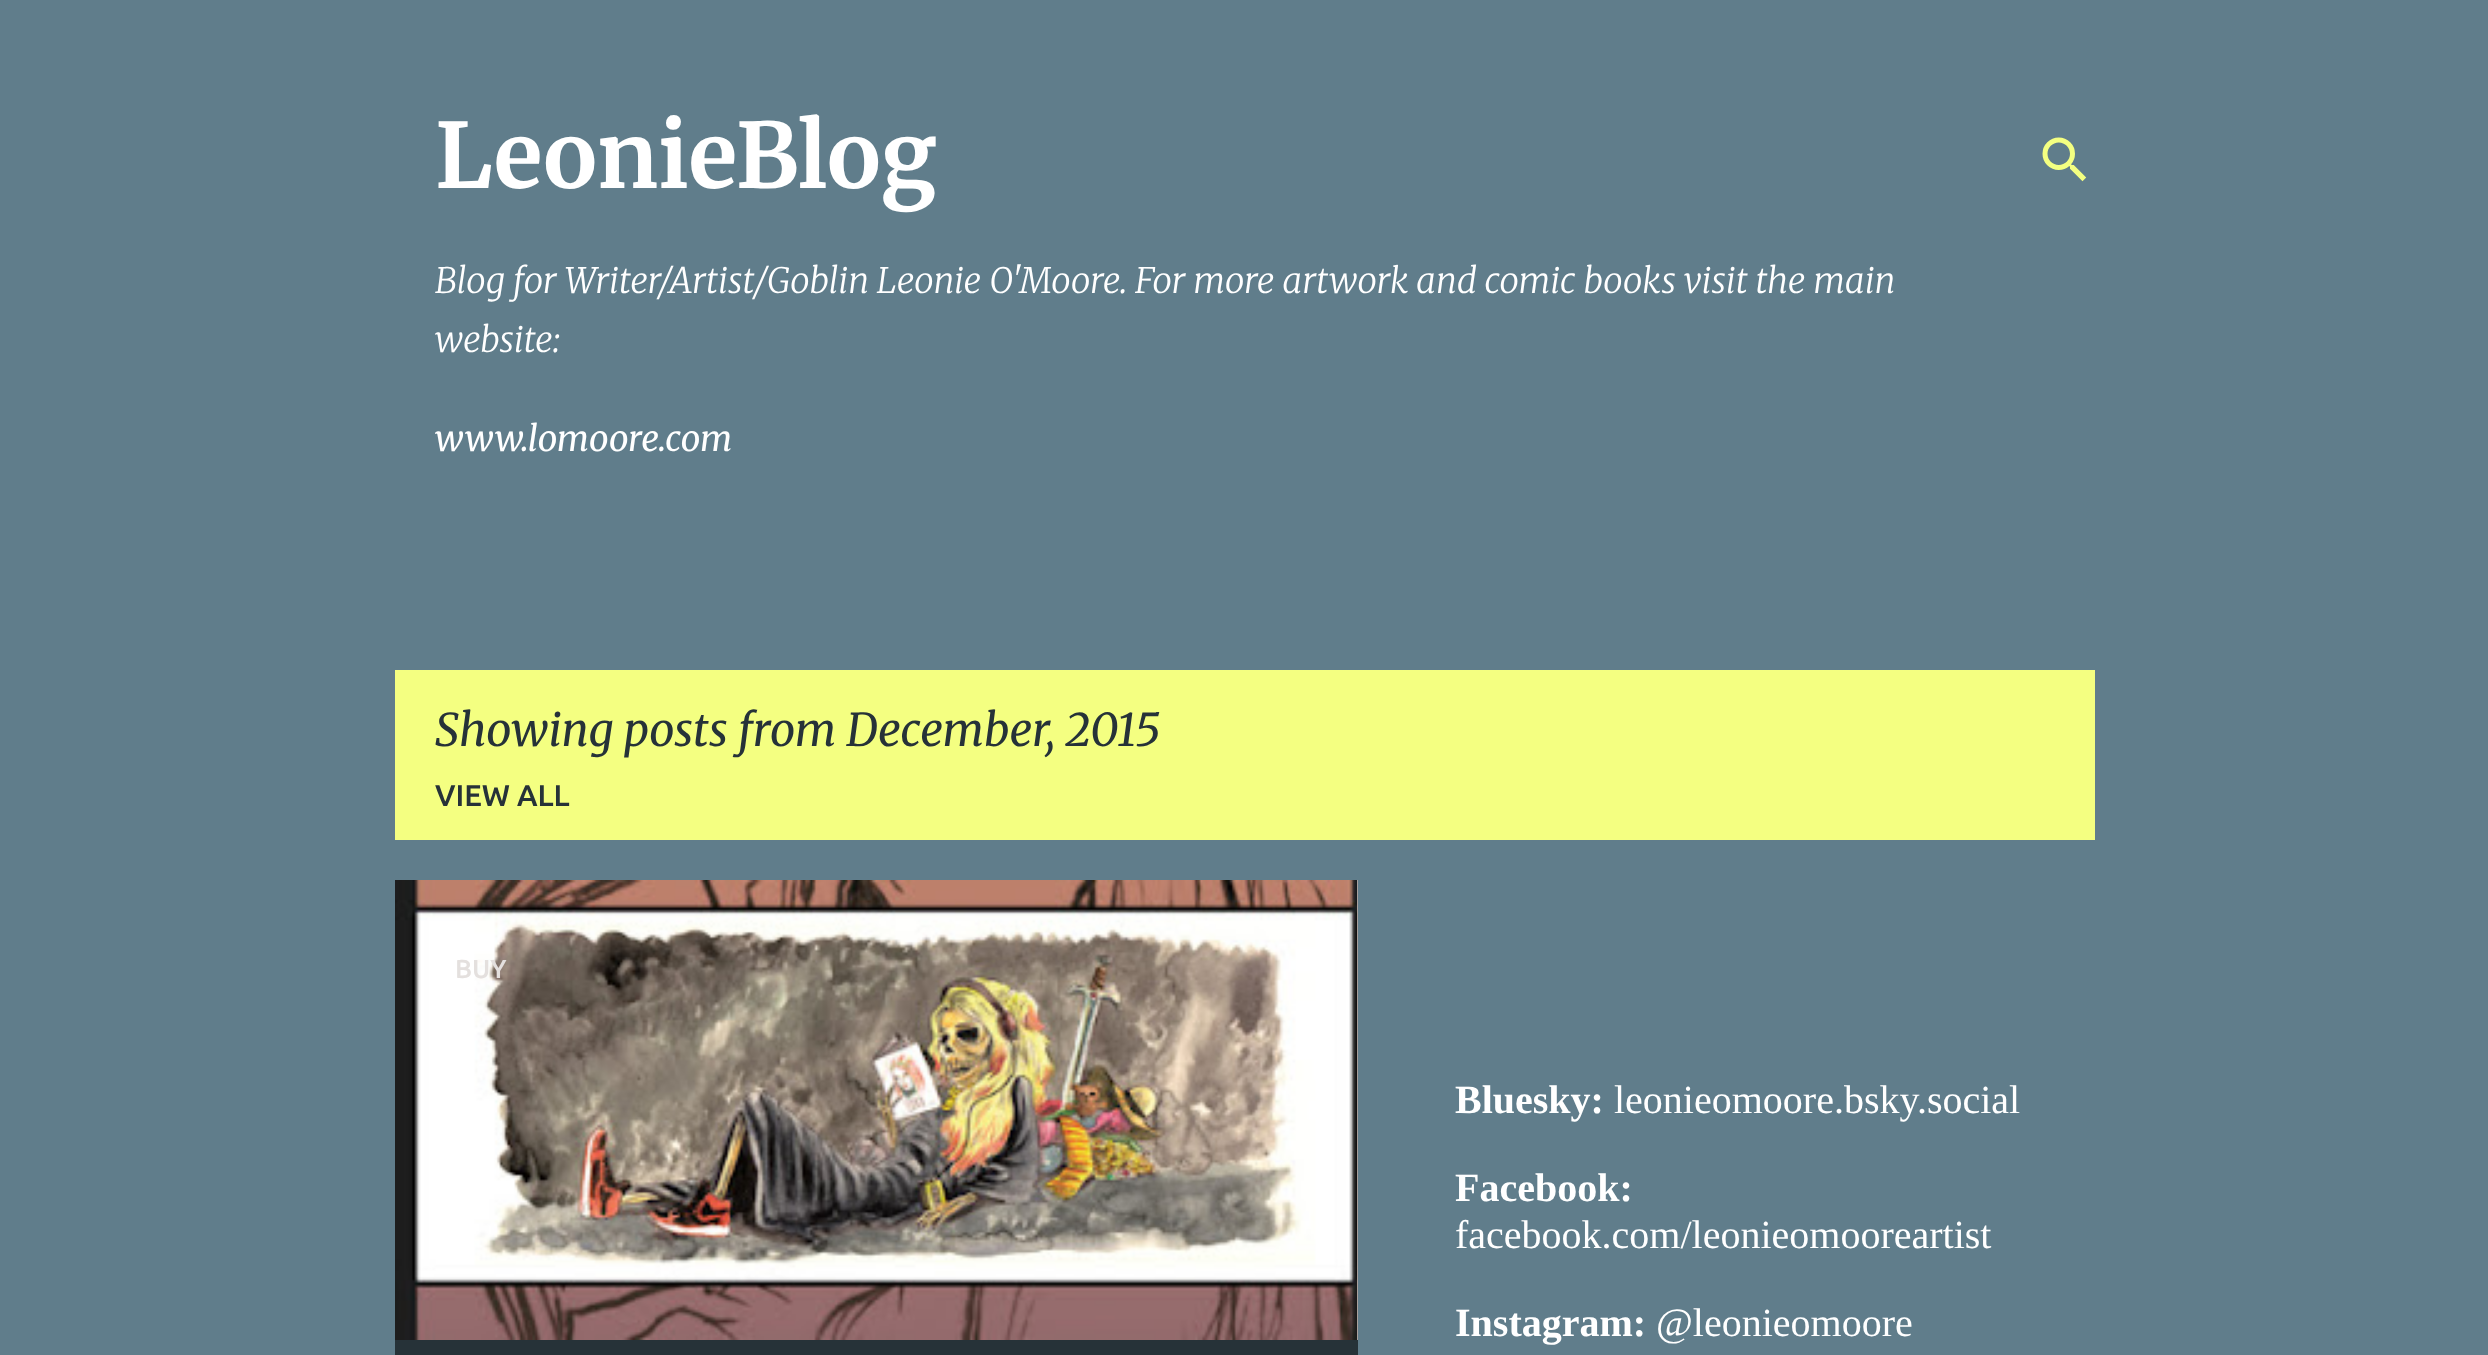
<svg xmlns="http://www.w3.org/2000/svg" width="2488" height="1355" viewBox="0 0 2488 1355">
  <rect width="100%" height="100%" fill="#607d8b"/>
  <text x="435" y="188" font-family="Merriweather" font-size="90" font-weight="bold" fill="#ffffff">LeonieBlog</text>
  <text x="435" y="293" font-family="Merriweather" font-size="35" font-weight="300" font-style="italic" fill="#ffffff">Blog for Writer/Artist/Goblin Leonie O'Moore. For more artwork and comic books visit the main</text>
  <text x="435" y="352" font-family="Merriweather" font-size="35" font-weight="300" font-style="italic" fill="#ffffff">website:</text>
  <text x="435" y="451" font-family="Merriweather" font-size="35" font-style="italic" fill="#ffffff">www.lomoore.com</text>
  <image x="2042" y="137" width="45" height="45" href="img1.png"/>
  <rect x="395" y="670" width="1700" height="170" fill="#f4ff81"/>
  <text x="435" y="746" font-family="Merriweather" font-size="45" font-style="italic" fill="#263238">Showing posts from December, 2015</text>
  <text x="435" y="806" font-family="Ubuntu" font-size="30" font-weight="500" fill="#263238">VIEW ALL</text>
  <rect x="395" y="1340" width="963" height="15" fill="#263238"/>
  <rect x="1357" y="880" width="1" height="460" fill="#d9cdc7"/>
  <image x="395" y="880" width="963" height="460" href="img2.png"/>
  <text x="455" y="978" font-family="Ubuntu" font-size="26" font-weight="500" fill="#e4e0de">BUY</text>
  <text x="1455" y="1113" font-family="Liberation Serif" font-size="40" font-weight="bold" fill="#ffffff">Bluesky:</text>
  <text x="1614" y="1113" font-family="Liberation Serif" font-size="40" fill="#ffffff">leonieomoore.bsky.social</text>
  <text x="1455" y="1201" font-family="Liberation Serif" font-size="40" font-weight="bold" fill="#ffffff">Facebook:</text>
  <text x="1455" y="1248" font-family="Liberation Serif" font-size="40" fill="#ffffff">facebook.com/leonieomooreartist</text>
  <text x="1455" y="1336" font-family="Liberation Serif" font-size="40" font-weight="bold" fill="#ffffff">Instagram:</text>
  <text x="1656" y="1336" font-family="Liberation Serif" font-size="40" fill="#ffffff">@leonieomoore</text>
</svg>
